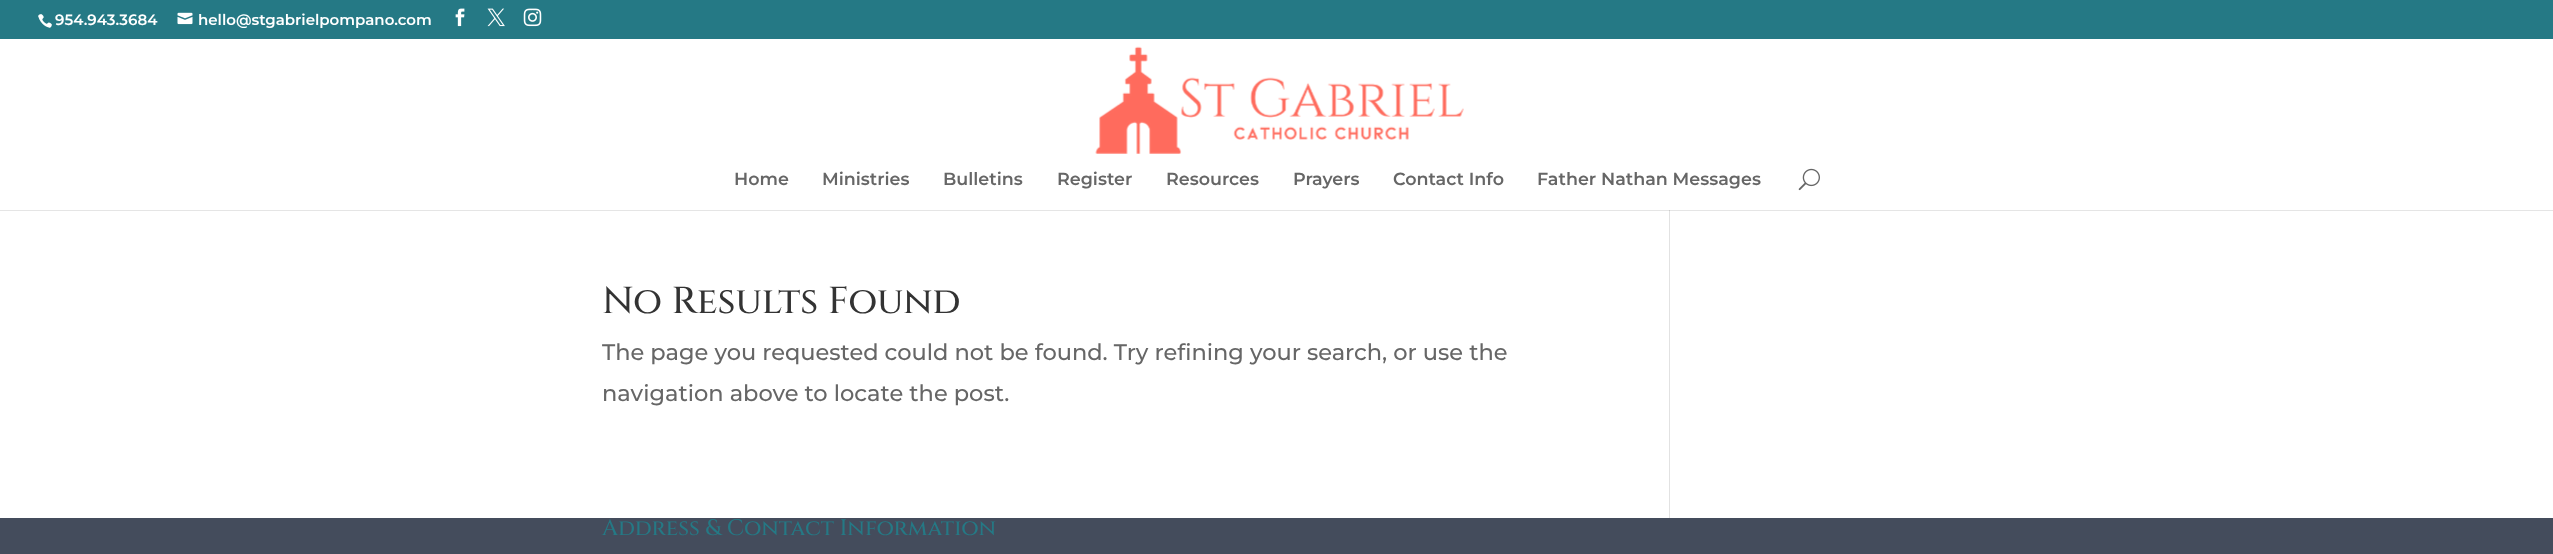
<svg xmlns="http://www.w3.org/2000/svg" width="2553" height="554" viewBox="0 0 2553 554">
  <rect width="100%" height="100%" fill="#ffffff"/>
  <rect x="0" y="0" width="2553" height="39" fill="#257985"/>
  <image x="38" y="14" width="14" height="14" href="img1.png"/>
  <text x="55" y="25" font-family="'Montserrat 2'" font-size="15" font-weight="100" fill="#ffffff">954.943.3684</text>
  <image x="177" y="12" width="16" height="13" href="img2.png"/>
  <text x="198" y="25" font-family="'Montserrat 2'" font-size="15" font-weight="100" fill="#ffffff">hello@stgabrielpompano.com</text>
  <image x="455" y="8" width="10" height="19" href="img3.png"/>
  <image x="487" y="8" width="18" height="19" href="img4.png"/>
  <image x="523" y="8" width="19" height="19" href="img5.png"/>
  <rect x="1669" y="210" width="1" height="308" fill="#e2e2e2"/>
  <path d="M0 210V211H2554V40V210Z" fill="#000000" fill-opacity="0.1"/>
  <image x="1095" y="46" width="369" height="108" href="img6.png"/>
  <text x="734" y="185" font-family="'Montserrat 2'" font-size="17.5" font-weight="100" fill="#666666">Home</text>
  <text x="822" y="185" font-family="'Montserrat 2'" font-size="17.5" font-weight="100" fill="#666666">Ministries</text>
  <text x="943" y="185" font-family="'Montserrat 2'" font-size="17.5" font-weight="100" fill="#666666">Bulletins</text>
  <text x="1057" y="185" font-family="'Montserrat 2'" font-size="17.5" font-weight="100" fill="#666666">Register</text>
  <text x="1166" y="185" font-family="'Montserrat 2'" font-size="17.5" font-weight="100" fill="#666666">Resources</text>
  <text x="1293" y="185" font-family="'Montserrat 2'" font-size="17.5" font-weight="100" fill="#666666">Prayers</text>
  <text x="1393" y="185" font-family="'Montserrat 2'" font-size="17.5" font-weight="100" fill="#666666">Contact Info</text>
  <text x="1537" y="185" font-family="'Montserrat 2'" font-size="17.5" font-weight="100" fill="#666666">Father Nathan Messages</text>
  <image x="1798" y="168" width="22" height="23" href="img7.png"/>
  <text x="602" y="313" font-family="Cinzel" font-size="37.5" font-weight="500" fill="#333333">No Results Found</text>
  <text x="602" y="360" font-family="Montserrat" font-size="22.5" font-weight="100" fill="#666666">The page you requested could not be found. Try refining your search, or use the</text>
  <text x="602" y="401" font-family="Montserrat" font-size="22.5" font-weight="100" fill="#666666">navigation above to locate the post.</text>
  <rect x="0" y="518" width="2553" height="36" fill="#444c5c"/>
  <text x="602" y="535" font-family="Cinzel" font-size="22.5" font-weight="500" fill="#257985">Address &amp; Contact Information</text>
</svg>
